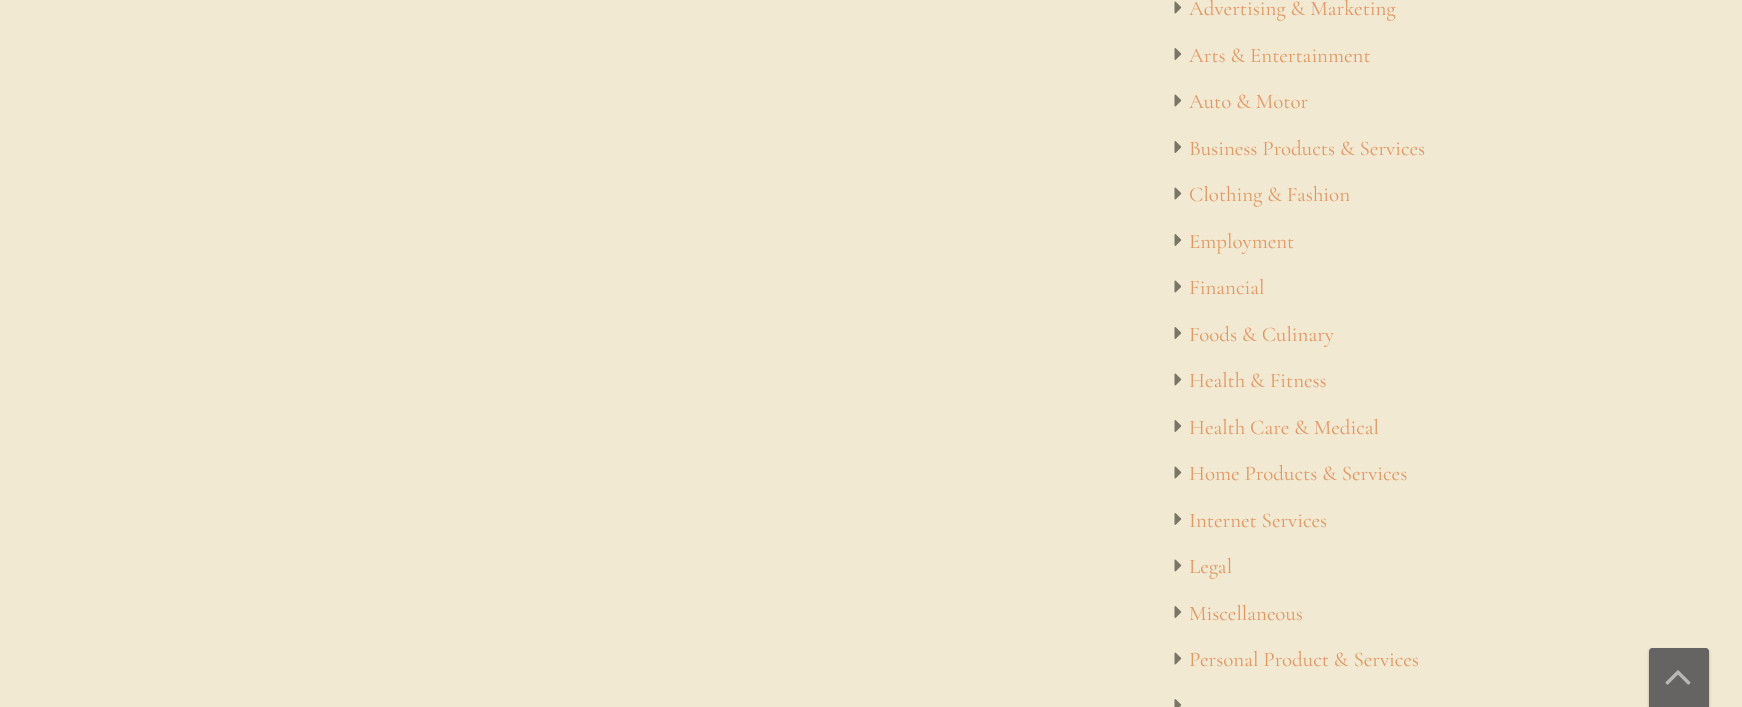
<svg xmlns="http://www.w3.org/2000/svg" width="1742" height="707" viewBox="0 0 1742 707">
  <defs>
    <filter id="blur1" x="-50%" y="-200%" width="200%" height="500%"><feGaussianBlur stdDeviation="1.5"/></filter>
  </defs>
  <rect width="100%" height="100%" fill="#f2e9d2"/>
  <image x="1174" y="1" width="8" height="13" href="img1.png"/>
  <text x="1189" y="15" font-family="Cormorant Garamond" font-size="21" font-weight="300" fill="#e09866">Advertising &amp; Marketing</text>
  <image x="1174" y="48" width="8" height="12" href="img2.png"/>
  <text x="1189" y="62" font-family="Cormorant Garamond" font-size="21" font-weight="300" fill="#e09866">Arts &amp; Entertainment</text>
  <image x="1174" y="94" width="8" height="13" href="img1.png"/>
  <text x="1189" y="108" font-family="Cormorant Garamond" font-size="21" font-weight="300" fill="#e09866">Auto &amp; Motor</text>
  <image x="1174" y="141" width="8" height="12" href="img2.png"/>
  <text x="1189" y="155" font-family="Cormorant Garamond" font-size="21" font-weight="300" fill="#e09866">Business Products &amp; Services</text>
  <image x="1174" y="187" width="8" height="13" href="img1.png"/>
  <text x="1189" y="201" font-family="Cormorant Garamond" font-size="21" font-weight="300" fill="#e09866">Clothing &amp; Fashion</text>
  <image x="1174" y="234" width="8" height="12" href="img2.png"/>
  <text x="1189" y="248" font-family="Cormorant Garamond" font-size="21" font-weight="300" fill="#e09866">Employment</text>
  <image x="1174" y="280" width="8" height="13" href="img1.png"/>
  <text x="1189" y="294" font-family="Cormorant Garamond" font-size="21" font-weight="300" fill="#e09866">Financial</text>
  <image x="1174" y="327" width="8" height="12" href="img2.png"/>
  <text x="1189" y="341" font-family="Cormorant Garamond" font-size="21" font-weight="300" fill="#e09866">Foods &amp; Culinary</text>
  <image x="1174" y="373" width="8" height="13" href="img1.png"/>
  <text x="1189" y="387" font-family="Cormorant Garamond" font-size="21" font-weight="300" fill="#e09866">Health &amp; Fitness</text>
  <image x="1174" y="420" width="8" height="12" href="img2.png"/>
  <text x="1189" y="434" font-family="Cormorant Garamond" font-size="21" font-weight="300" fill="#e09866">Health Care &amp; Medical</text>
  <image x="1174" y="466" width="8" height="13" href="img1.png"/>
  <text x="1189" y="480" font-family="Cormorant Garamond" font-size="21" font-weight="300" fill="#e09866">Home Products &amp; Services</text>
  <image x="1174" y="513" width="8" height="12" href="img2.png"/>
  <text x="1189" y="527" font-family="Cormorant Garamond" font-size="21" font-weight="300" fill="#e09866">Internet Services</text>
  <image x="1174" y="559" width="8" height="13" href="img1.png"/>
  <text x="1189" y="573" font-family="Cormorant Garamond" font-size="21" font-weight="300" fill="#e09866">Legal</text>
  <image x="1174" y="606" width="8" height="12" href="img2.png"/>
  <text x="1189" y="620" font-family="Cormorant Garamond" font-size="21" font-weight="300" fill="#e09866">Miscellaneous</text>
  <image x="1174" y="652" width="8" height="13" href="img1.png"/>
  <text x="1189" y="666" font-family="Cormorant Garamond" font-size="21" font-weight="300" fill="#e09866">Personal Product &amp; Services</text>
  <image x="1174" y="699" width="8" height="8" href="img3.png"/>
  <rect x="1649" y="650" width="60" height="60" rx="3" fill="#181715" fill-opacity="0.25" filter="url(#blur1)"/>
  <path d="M1652 648H1706C1707.5 648 1709 649.5 1709 651V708H1649V651C1649 649.5 1650.5 648 1652 648Z" fill="#656462"/>
  <image x="1665" y="670" width="26" height="15" href="img4.png"/>
</svg>
